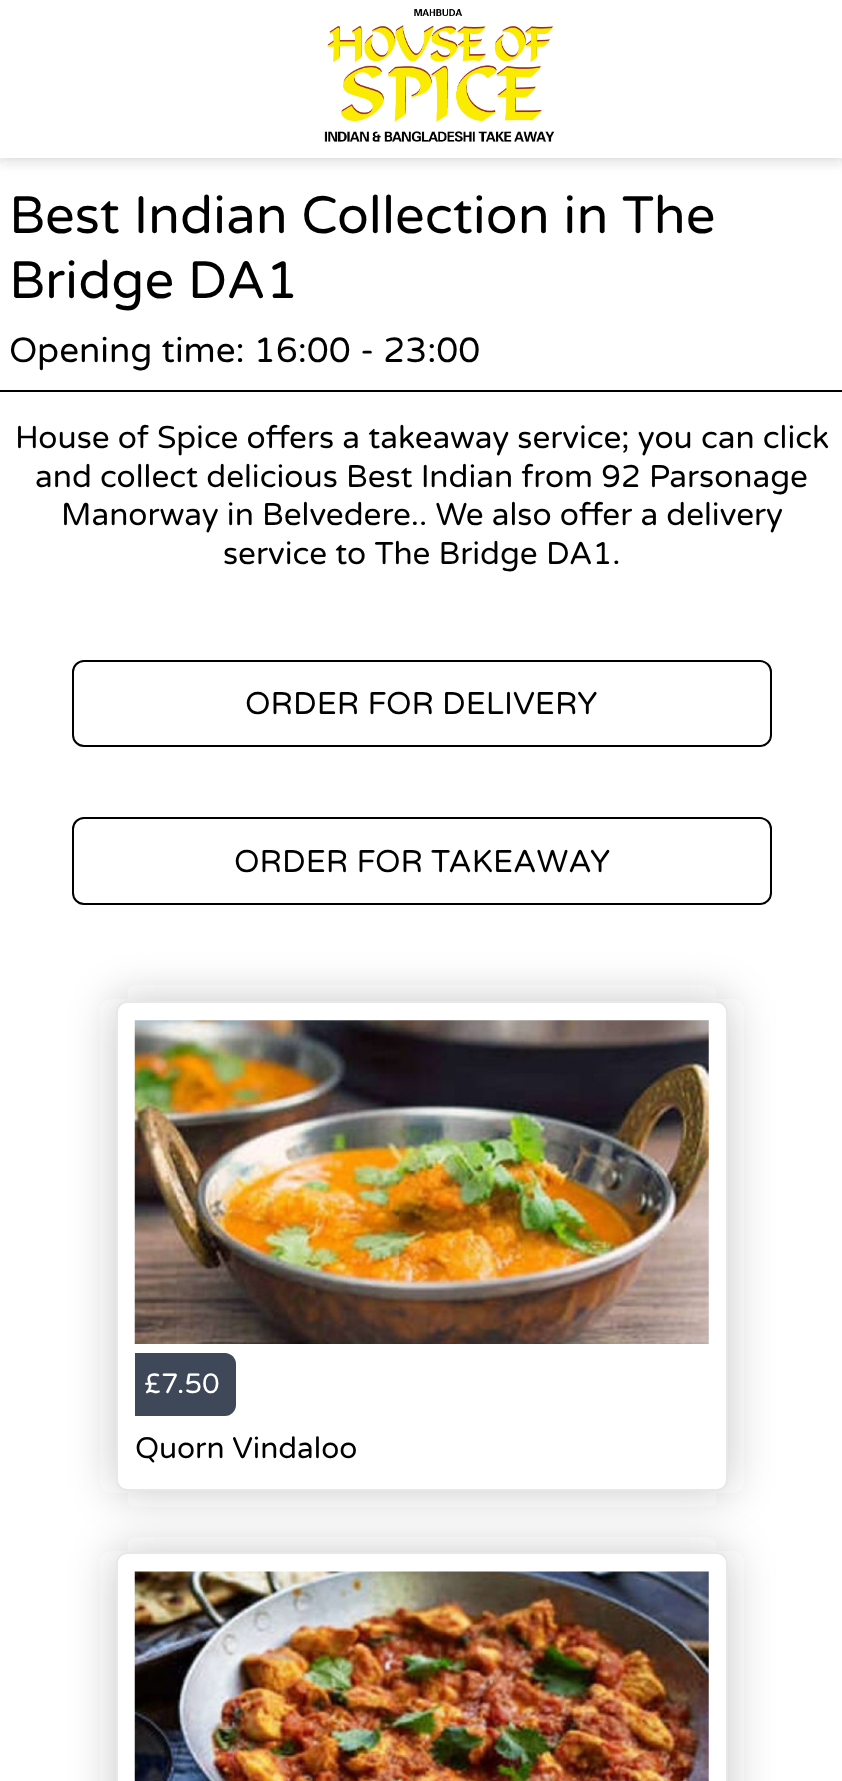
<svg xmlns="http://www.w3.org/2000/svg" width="842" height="1781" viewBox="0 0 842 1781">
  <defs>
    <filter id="blur1" x="-50%" y="-200%" width="200%" height="500%"><feGaussianBlur stdDeviation="7"/></filter>
    <filter id="blur2" x="-50%" y="-200%" width="200%" height="500%"><feGaussianBlur stdDeviation="22"/></filter>
  </defs>
  <rect width="100%" height="100%" fill="#ffffff"/>
  <rect x="-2" y="-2" width="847" height="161" fill="#353535" fill-opacity="0.25" filter="url(#blur1)"/>
  <rect x="0" y="0" width="842" height="158" fill="#ffffff"/>
  <image x="324" y="9" width="231" height="133" href="img1.png"/>
  <text x="9" y="233" font-family="Varela Round" font-size="52.5" fill="#000000">Best Indian Collection in The</text>
  <text x="9" y="298" font-family="Varela Round" font-size="52.5" fill="#000000">Bridge DA1</text>
  <rect x="0" y="390" width="842" height="2" fill="#000000"/>
  <text x="9" y="362" font-family="Varela Round" font-size="35" fill="#000000">Opening time: 16:00 - 23:00</text>
  <text x="15" y="448" font-family="Varela Round" font-size="31.5" fill="#000000">House of Spice offers a takeaway service; you can click</text>
  <text x="35" y="487" font-family="Varela Round" font-size="31.5" fill="#000000">and collect delicious Best Indian from 92 Parsonage</text>
  <text x="61" y="525" font-family="Varela Round" font-size="31.5" fill="#000000">Manorway in Belvedere.. We also offer a delivery</text>
  <text x="223" y="564" font-family="Varela Round" font-size="31.5" fill="#000000">service to The Bridge DA1.</text>
  <rect x="73" y="661" width="698" height="85" rx="11" fill="none" stroke="#000000" stroke-width="2"/>
  <text x="245" y="714" font-family="Varela Round" font-size="31.5" fill="#000000">ORDER FOR DELIVERY</text>
  <rect x="73" y="818" width="698" height="86" rx="11" fill="none" stroke="#000000" stroke-width="2"/>
  <text x="234" y="872" font-family="Varela Round" font-size="31.5" fill="#000000">ORDER FOR TAKEAWAY</text>
  <rect x="114" y="999" width="616" height="494" rx="12" fill="#353535" fill-opacity="0.25" filter="url(#blur2)"/>
  <rect x="117" y="1002" width="610" height="488" rx="10" fill="#ffffff" stroke="#e8e8e8" stroke-width="2"/>
  <image x="134" y="1020" width="575" height="324" href="img2.png"/>
  <path d="M135 1353H225C231 1353 236 1358 236 1364V1405C236 1411 231 1416 225 1416H135Z" fill="#3f4858"/>
  <text x="144" y="1393" font-family="Varela Round" font-size="28" fill="#ffffff">£7.50</text>
  <text x="135" y="1458" font-family="Varela Round" font-size="29.75" fill="#000000">Quorn Vindaloo</text>
  <rect x="114" y="1551" width="616" height="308" rx="12" fill="#353535" fill-opacity="0.25" filter="url(#blur2)"/>
  <path d="M127 1552H717C723 1552 728 1557 728 1563V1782H116V1563C116 1557 121 1552 127 1552Z" fill="#ffffff"/>
  <rect x="117" y="1553" width="610" height="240" rx="10" fill="none" stroke="#e8e8e8" stroke-width="2"/>
  <image x="134" y="1571" width="575" height="210" href="img3.png"/>
</svg>
